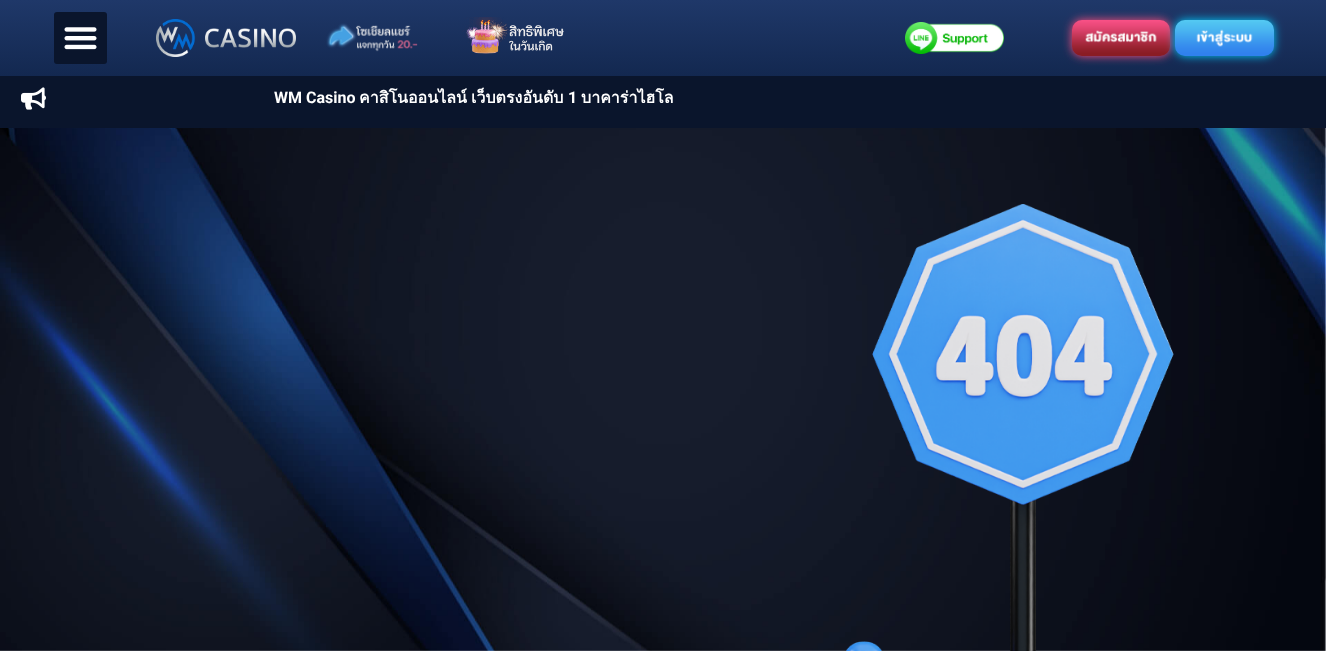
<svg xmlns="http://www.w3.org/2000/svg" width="1326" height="651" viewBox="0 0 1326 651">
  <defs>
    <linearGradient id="g1" gradientUnits="userSpaceOnUse" x1="663" y1="0" x2="663" y2="76"><stop offset="0" stop-color="#1f3869"/><stop offset="1" stop-color="#132850"/></linearGradient>
    <filter id="blur1" x="-50%" y="-200%" width="200%" height="500%"><feGaussianBlur stdDeviation="5"/></filter>
  </defs>
  <rect width="100%" height="100%" fill="#ffffff"/>
  <image x="0" y="128" width="1326" height="523" href="img1.png"/>
  <rect x="0" y="0" width="1326" height="76" fill="url(#g1)"/>
  <rect x="54" y="12" width="53" height="52" rx="3" fill="#0a152c"/>
  <image x="64" y="27" width="33" height="23" href="img2.png"/>
  <image x="156" y="19" width="140" height="38" href="img3.png"/>
  <image x="326" y="23" width="92" height="29" href="img4.png"/>
  <image x="462" y="17" width="102" height="37" href="img5.png"/>
  <image x="905" y="22" width="99" height="32" href="img6.png"/>
  <rect x="1072" y="20" width="98" height="36" rx="10" fill="#ff4d7e" filter="url(#blur1)"/>
  <image x="1072" y="20" width="98" height="36" href="img7.png"/>
  <rect x="1175" y="20" width="99" height="36" rx="10" fill="#10caff" filter="url(#blur1)"/>
  <image x="1175" y="20" width="99" height="36" href="img8.png"/>
  <rect x="0" y="76" width="1326" height="52" fill="#0a152c"/>
  <image x="21" y="87" width="25" height="23" href="img9.png"/>
  <text x="274" y="103" font-family="Roboto" font-size="16" font-weight="bold" fill="#ffffff">WM Casino</text>
  <text x="359" y="103" font-family="Loma" font-size="16" font-weight="bold" fill="#ffffff">คาสิโนออนไลน์</text>
  <text x="471" y="103" font-family="Loma" font-size="16" font-weight="bold" fill="#ffffff">เว็บตรงอันดับ</text>
  <text x="568" y="103" font-family="Roboto" font-size="16" font-weight="bold" fill="#ffffff">1</text>
  <text x="581" y="103" font-family="Loma" font-size="16" font-weight="bold" fill="#ffffff">บาคาร่าไฮโล</text>
  <image x="846" y="204" width="328" height="447" href="img10.png"/>
</svg>
